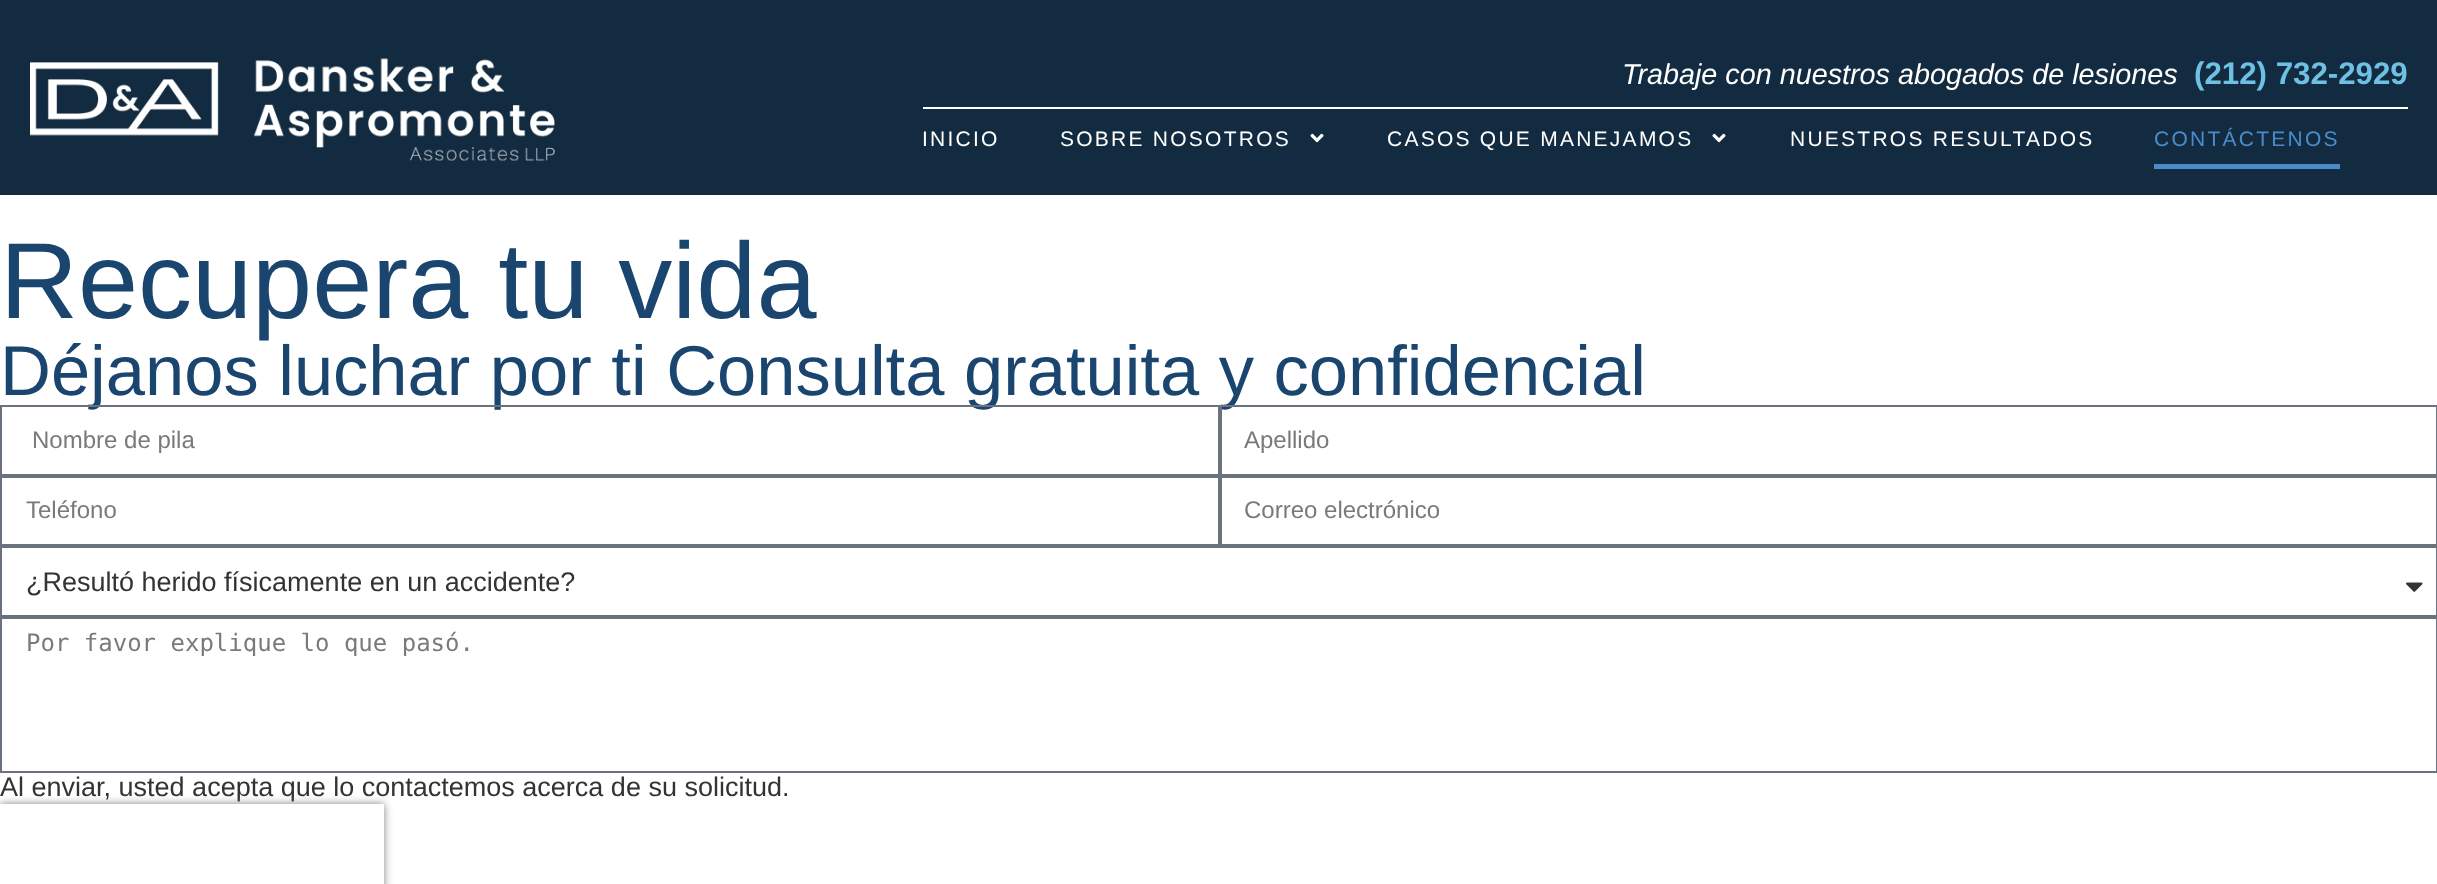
<svg xmlns="http://www.w3.org/2000/svg" width="2437" height="884" viewBox="0 0 2437 884">
  <defs>
    <clipPath id="clip1"><path d="M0 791H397V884H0ZM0 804H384V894H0Z" clip-rule="evenodd"/></clipPath>
    <filter id="blur1" x="-50%" y="-200%" width="200%" height="500%"><feGaussianBlur stdDeviation="4"/></filter>
  </defs>
  <rect width="100%" height="100%" fill="#ffffff"/>
  <rect x="0" y="0" width="2437" height="195" fill="#132b41"/>
  <image x="30" y="58" width="525" height="103" href="img1.png"/>
  <text x="1622" y="84" font-family="Liberation Sans" font-size="28.75" font-style="italic" fill="#ffffff">Trabaje con nuestros abogados de lesiones</text>
  <text x="2194" y="84" font-family="Liberation Sans" font-size="31.25" font-weight="bold" fill="#6ec1e4">(212) 732-2929</text>
  <rect x="923" y="107" width="1485" height="2" fill="#ffffff"/>
  <text x="922" y="146" font-family="Liberation Sans" font-size="21" letter-spacing="2.25" fill="#ffffff">INICIO</text>
  <text x="1060" y="146" font-family="Liberation Sans" font-size="21" letter-spacing="2.25" fill="#ffffff">SOBRE NOSOTROS</text>
  <image x="1310" y="133" width="14" height="10" href="img2.png"/>
  <text x="1387" y="146" font-family="Liberation Sans" font-size="21" letter-spacing="2.25" fill="#ffffff">CASOS QUE MANEJAMOS</text>
  <image x="1712" y="133" width="14" height="10" href="img2.png"/>
  <text x="1790" y="146" font-family="Liberation Sans" font-size="21" letter-spacing="2.25" fill="#ffffff">NUESTROS RESULTADOS</text>
  <text x="2154" y="146" font-family="Liberation Sans" font-size="21" letter-spacing="2.25" fill="#498cc9">CONTÁCTENOS</text>
  <rect x="2154" y="164" width="186" height="5" fill="#498cc9"/>
  <text x="0" y="318" font-family="Liberation Sans" font-size="108" fill="#19456e">Recupera tu vida</text>
  <text x="0" y="395" font-family="Liberation Sans" font-size="70.5" fill="#19456e">Déjanos luchar por ti Consulta gratuita y confidencial</text>
  <rect x="1" y="406" width="1218" height="69" fill="none" stroke="#69727d" stroke-width="2"/>
  <text x="32" y="448" font-family="Liberation Sans" font-size="24" fill="#797a7c">Nombre de pila</text>
  <rect x="1221" y="406" width="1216" height="69" fill="none" stroke="#69727d" stroke-width="2"/>
  <text x="1244" y="448" font-family="Liberation Sans" font-size="24" fill="#797a7c">Apellido</text>
  <rect x="1" y="477" width="1218" height="68" fill="none" stroke="#69727d" stroke-width="2"/>
  <text x="26" y="518" font-family="Liberation Sans" font-size="24" fill="#797a7c">Teléfono</text>
  <rect x="1221" y="477" width="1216" height="68" fill="none" stroke="#69727d" stroke-width="2"/>
  <text x="1244" y="518" font-family="Liberation Sans" font-size="24" fill="#797a7c">Correo electrónico</text>
  <rect x="1" y="547" width="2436" height="69" fill="none" stroke="#69727d" stroke-width="2"/>
  <text x="26" y="591" font-family="Liberation Sans" font-size="27" fill="#333333">¿Resultó herido físicamente en un accidente?</text>
  <image x="2406" y="582" width="17" height="10" href="img3.png"/>
  <rect x="1" y="618" width="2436" height="154" fill="none" stroke="#69727d" stroke-width="2"/>
  <text x="26" y="651" font-family="DejaVu Sans Mono" font-size="24" fill="#797a7c">Por favor explique lo que pasó.</text>
  <text x="0" y="796" font-family="Liberation Sans" font-size="27" fill="#333333">Al enviar, usted acepta que lo contactemos acerca de su solicitud.</text>
  <g clip-path="url(#clip1)">
    <rect x="0" y="804" width="384" height="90" fill="#808080" filter="url(#blur1)"/>
  </g>
</svg>
